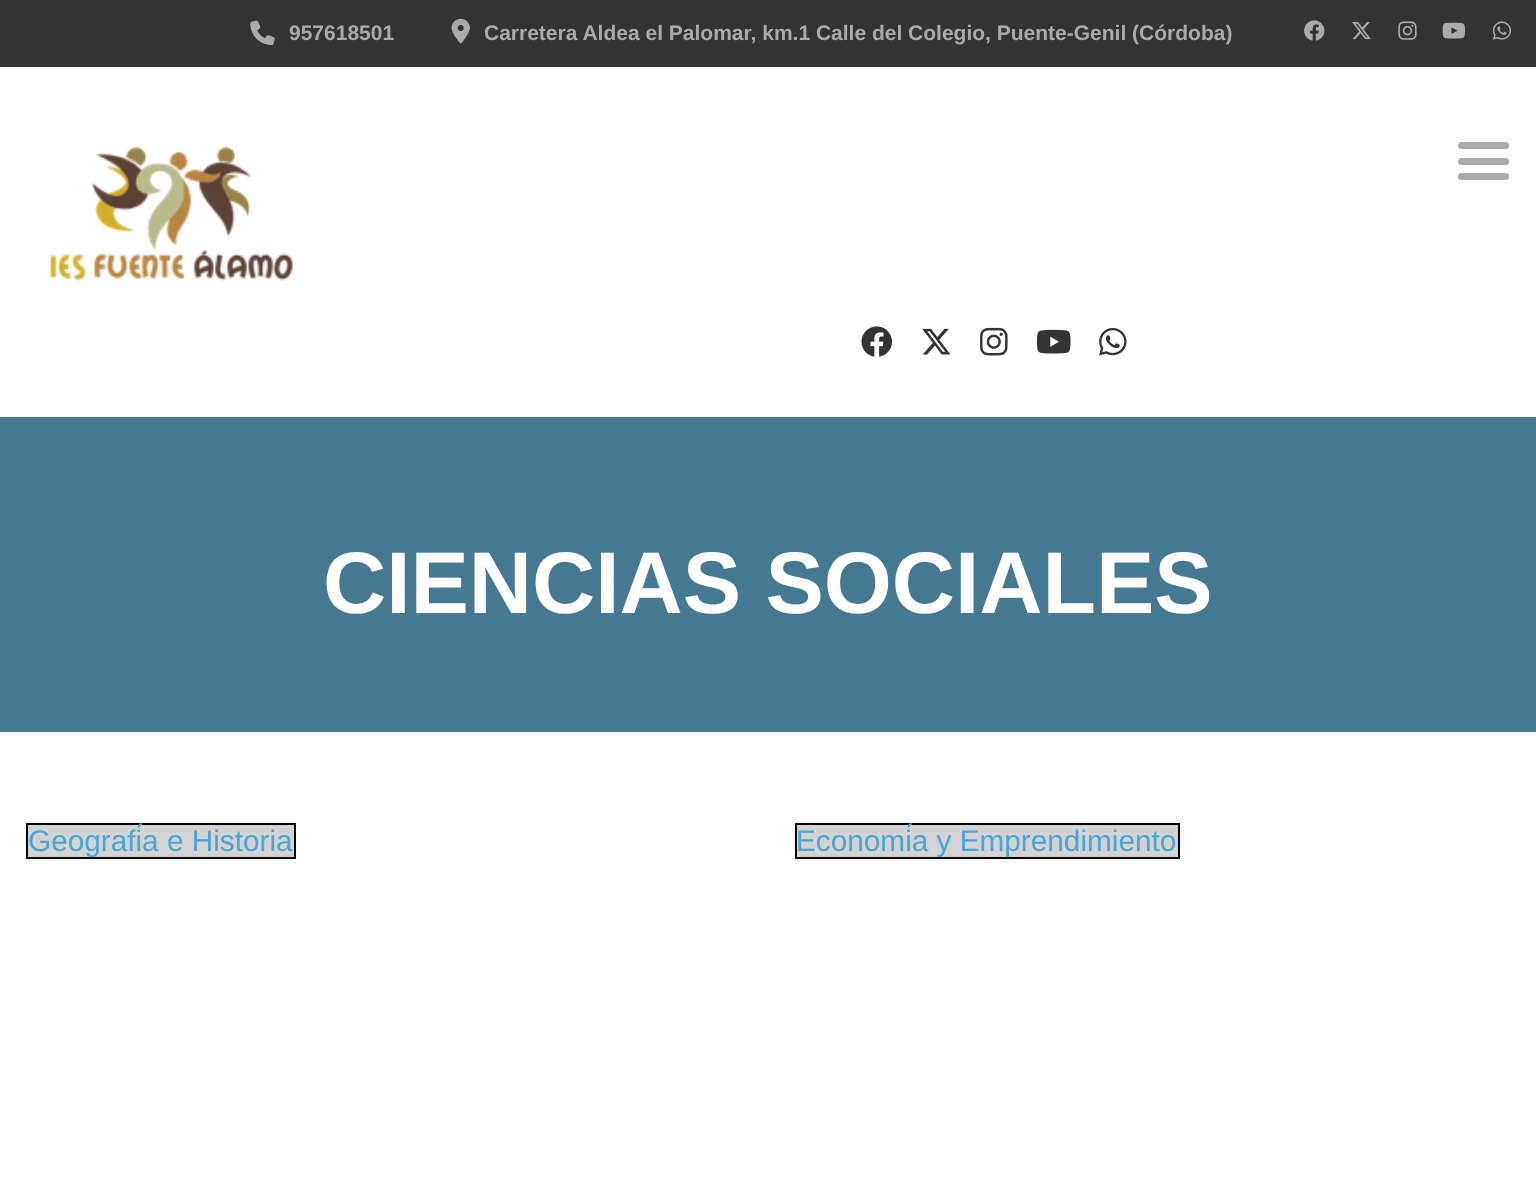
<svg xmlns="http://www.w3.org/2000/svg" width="1536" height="1198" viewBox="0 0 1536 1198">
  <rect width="100%" height="100%" fill="#ffffff"/>
  <rect x="0" y="0" width="1536" height="67" fill="#333333"/>
  <image x="250" y="20" width="25" height="26" href="img1.png"/>
  <text x="289" y="40" font-family="Liberation Sans" font-size="21" font-weight="bold" fill="#aaaaaa">957618501</text>
  <image x="451" y="18" width="19" height="26" href="img2.png"/>
  <text x="484" y="40" font-family="Liberation Sans" font-size="21" font-weight="bold" fill="#aaaaaa">Carretera Aldea el Palomar, km.1 Calle del Colegio, Puente-Genil (Córdoba)</text>
  <image x="1304" y="20" width="21" height="21" href="img3.png"/>
  <image x="1352" y="22" width="19" height="18" href="img4.png"/>
  <image x="1398" y="21" width="19" height="19" href="img5.png"/>
  <image x="1442" y="22" width="23" height="17" href="img6.png"/>
  <image x="1492" y="21" width="20" height="19" href="img7.png"/>
  <image x="49" y="146" width="246" height="135" href="img8.png"/>
  <rect x="1458" y="142" width="51" height="7" rx="3.5" fill="#aaaaaa"/>
  <rect x="1458" y="158" width="51" height="7" rx="3.5" fill="#aaaaaa"/>
  <rect x="1458" y="173" width="51" height="7" rx="3.5" fill="#aaaaaa"/>
  <image x="861" y="326" width="31" height="31" href="img9.png"/>
  <image x="922" y="328" width="29" height="27" href="img10.png"/>
  <image x="980" y="327" width="28" height="29" href="img11.png"/>
  <image x="1036" y="329" width="35" height="25" href="img12.png"/>
  <image x="1099" y="327" width="28" height="29" href="img13.png"/>
  <rect x="0" y="417" width="1536" height="315" fill="#457992"/>
  <text x="323" y="613" font-family="Liberation Sans" font-size="87.5" font-weight="bold" fill="#ffffff">CIENCIAS SOCIALES</text>
  <rect x="27" y="824" width="268" height="34" fill="#d3d3d3" stroke="#000000" stroke-width="2"/>
  <text x="28" y="851" font-family="Liberation Sans" font-size="29.75" fill="#48a7d4">Geografía e Historia</text>
  <rect x="796" y="824" width="383" height="34" fill="#d3d3d3" stroke="#000000" stroke-width="2"/>
  <text x="796" y="851" font-family="Liberation Sans" font-size="29.75" fill="#48a7d4">Economía y Emprendimiento</text>
</svg>
